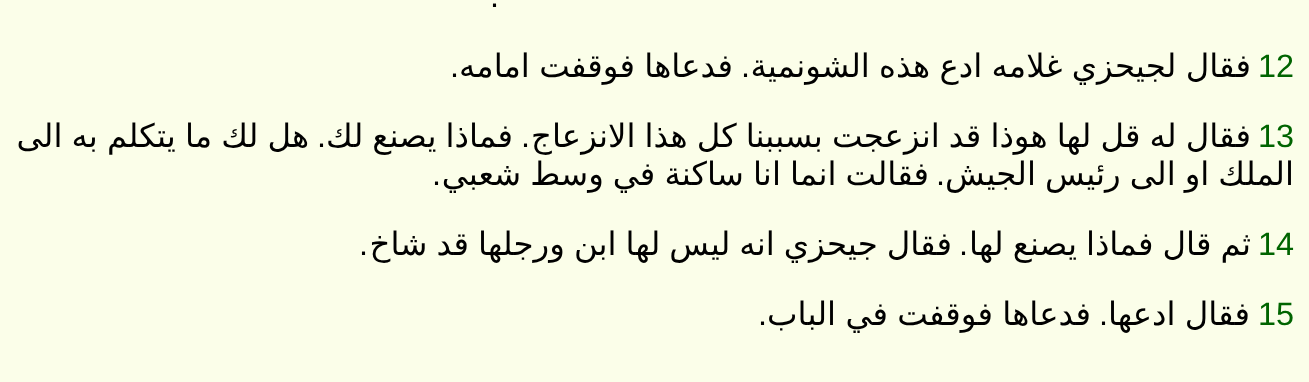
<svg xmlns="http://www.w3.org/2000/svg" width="1309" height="382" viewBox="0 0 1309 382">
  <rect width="100%" height="100%" fill="#fbfee9"/>
  <text x="499" y="7" font-family="Liberation Sans" font-size="32.4" direction="rtl" fill="#000000">.</text>
  <text x="1258" y="77" font-family="Liberation Sans" font-size="32.4" fill="#006400">12</text>
  <text x="1251" y="77" word-spacing="-1" font-family="DejaVu Sans" font-size="32.4" direction="rtl" fill="#000000">فقال لجيحزي غلامه ادع هذه الشونمية</text>
  <text x="750" y="77" font-family="Liberation Sans" font-size="32.4" direction="rtl" fill="#000000">.</text>
  <text x="733" y="77" word-spacing="-1" font-family="DejaVu Sans" font-size="32.4" direction="rtl" fill="#000000">فدعاها فوقفت امامه</text>
  <text x="459" y="77" font-family="Liberation Sans" font-size="32.4" direction="rtl" fill="#000000">.</text>
  <text x="1258" y="147" font-family="Liberation Sans" font-size="32.4" fill="#006400">13</text>
  <text x="1251" y="147" word-spacing="-1.25" font-family="DejaVu Sans" font-size="32.4" direction="rtl" fill="#000000">فقال له قل لها هوذا قد انزعجت بسببنا كل هذا الانزعاج</text>
  <text x="530" y="147" font-family="Liberation Sans" font-size="32.4" direction="rtl" fill="#000000">.</text>
  <text x="513" y="147" word-spacing="-1.25" font-family="DejaVu Sans" font-size="32.4" direction="rtl" fill="#000000">فماذا يصنع لك</text>
  <text x="326" y="147" font-family="Liberation Sans" font-size="32.4" direction="rtl" fill="#000000">.</text>
  <text x="309" y="147" word-spacing="-1.25" font-family="DejaVu Sans" font-size="32.4" direction="rtl" fill="#000000">هل لك ما يتكلم به الى</text>
  <text x="1294" y="185" word-spacing="-1.25" font-family="DejaVu Sans" font-size="32.4" direction="rtl" fill="#000000">الملك او الى رئيس الجيش</text>
  <text x="945" y="185" font-family="Liberation Sans" font-size="32.4" direction="rtl" fill="#000000">.</text>
  <text x="929" y="185" word-spacing="-1.25" font-family="DejaVu Sans" font-size="32.4" direction="rtl" fill="#000000">فقالت انما انا ساكنة في وسط شعبي</text>
  <text x="441" y="185" font-family="Liberation Sans" font-size="32.4" direction="rtl" fill="#000000">.</text>
  <text x="1258" y="255" font-family="Liberation Sans" font-size="32.4" fill="#006400">14</text>
  <text x="1251" y="255" word-spacing="-1.25" font-family="DejaVu Sans" font-size="32.4" direction="rtl" fill="#000000">ثم قال فماذا يصنع لها</text>
  <text x="968" y="255" font-family="Liberation Sans" font-size="32.4" direction="rtl" fill="#000000">.</text>
  <text x="952" y="255" word-spacing="-1.25" font-family="DejaVu Sans" font-size="32.4" direction="rtl" fill="#000000">فقال جيحزي انه ليس لها ابن ورجلها قد شاخ</text>
  <text x="368" y="255" font-family="Liberation Sans" font-size="32.4" direction="rtl" fill="#000000">.</text>
  <text x="1258" y="325" font-family="Liberation Sans" font-size="32.4" fill="#006400">15</text>
  <text x="1250" y="325" word-spacing="-1" font-family="DejaVu Sans" font-size="32.4" direction="rtl" fill="#000000">فقال ادعها</text>
  <text x="1108" y="325" font-family="Liberation Sans" font-size="32.4" direction="rtl" fill="#000000">.</text>
  <text x="1091" y="325" word-spacing="-1" font-family="DejaVu Sans" font-size="32.4" direction="rtl" fill="#000000">فدعاها فوقفت في الباب</text>
  <text x="767" y="325" font-family="Liberation Sans" font-size="32.4" direction="rtl" fill="#000000">.</text>
</svg>
